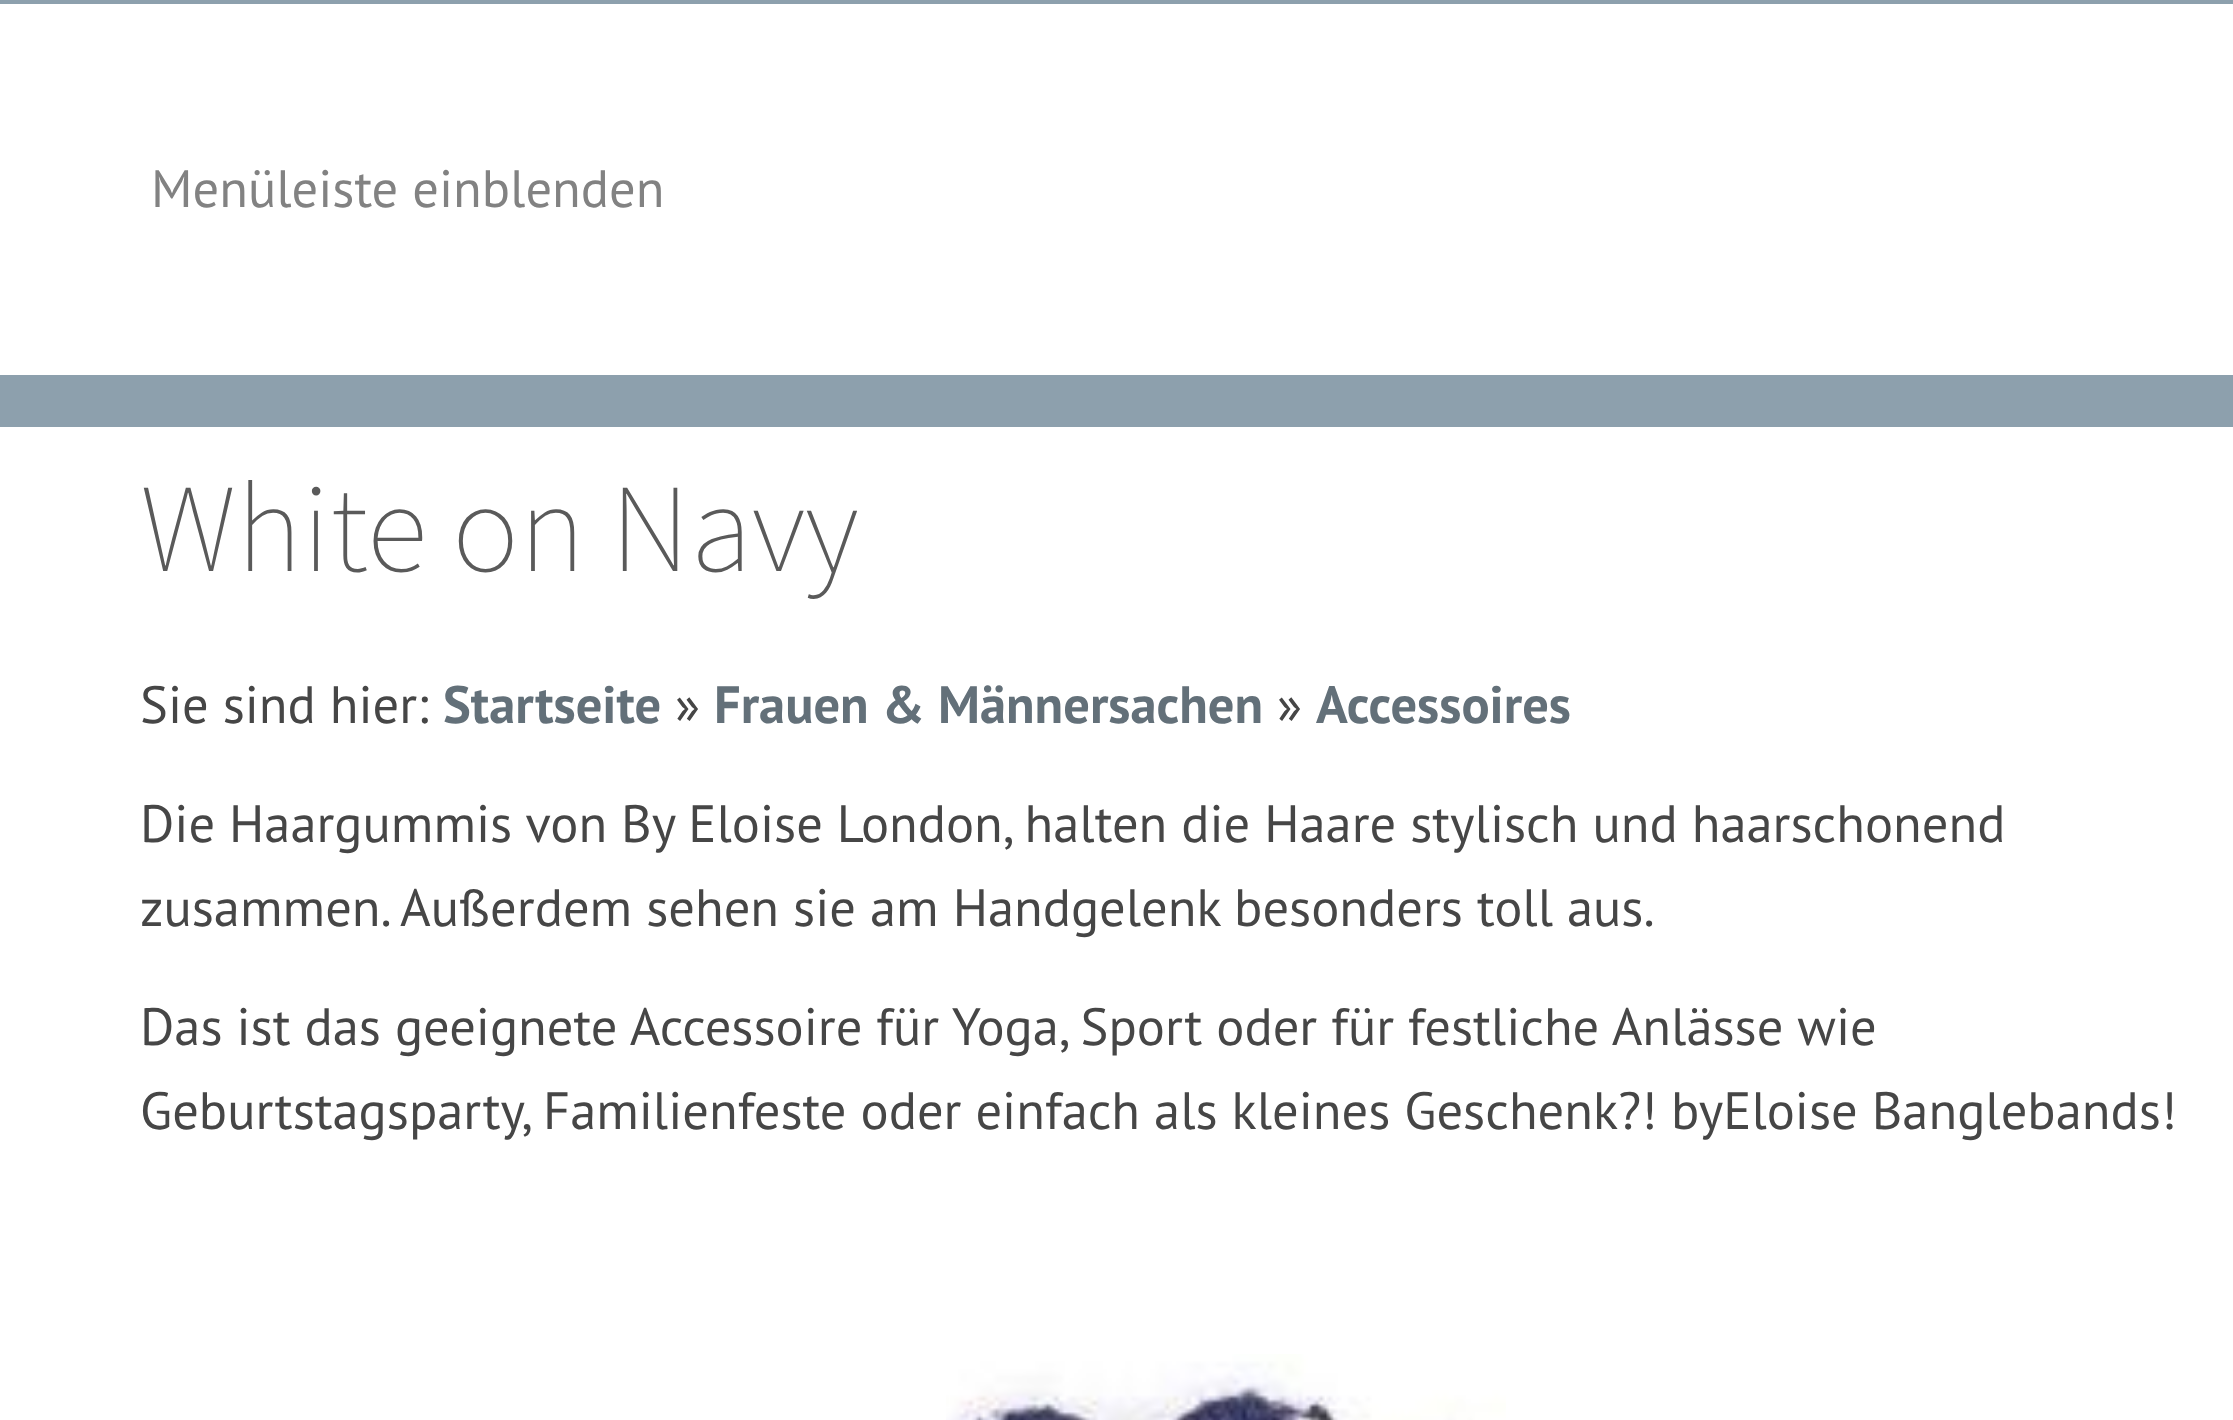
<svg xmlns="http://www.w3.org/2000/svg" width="2233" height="1420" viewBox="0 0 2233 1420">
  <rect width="100%" height="100%" fill="#8da0ad"/>
  <rect x="0" y="4" width="2233" height="371" fill="#ffffff"/>
  <text x="151" y="207" font-family="PT Sans" font-size="52.5" fill="#828282">Menüleiste einblenden</text>
  <rect x="0" y="427" width="2233" height="993" fill="#ffffff"/>
  <text x="140" y="571" font-family="Source Sans Pro" font-size="126" font-weight="200" fill="#5a5a5a">White on Navy</text>
  <text x="140" y="723" font-family="PT Sans" font-size="52.5" fill="#464646">Sie sind hier:</text>
  <text x="443" y="723" font-family="PT Sans" font-size="52.5" font-weight="bold" fill="#637079">Startseite</text>
  <text x="675" y="723" font-family="PT Sans" font-size="52.5" fill="#464646">»</text>
  <text x="714" y="723" font-family="PT Sans" font-size="52.5" font-weight="bold" fill="#637079">Frauen &amp; Männersachen</text>
  <text x="1277" y="723" font-family="PT Sans" font-size="52.5" fill="#464646">»</text>
  <text x="1316" y="723" font-family="PT Sans" font-size="52.5" font-weight="bold" fill="#637079">Accessoires</text>
  <text x="140" y="842" font-family="PT Sans" font-size="52.5" fill="#464646">Die Haargummis von By Eloise London, halten die Haare stylisch und haarschonend</text>
  <text x="140" y="926" font-family="PT Sans" font-size="52.5" fill="#464646">zusammen. Außerdem sehen sie am Handgelenk besonders toll aus.</text>
  <text x="140" y="1045" font-family="PT Sans" font-size="52.5" fill="#464646">Das ist das geeignete Accessoire für Yoga, Sport oder für festliche Anlässe wie</text>
  <text x="140" y="1129" font-family="PT Sans" font-size="52.5" fill="#464646">Geburtstagsparty, Familienfeste oder einfach als kleines Geschenk?! byEloise Banglebands!</text>
  <image x="946" y="1354" width="560" height="66" href="img1.png"/>
</svg>
